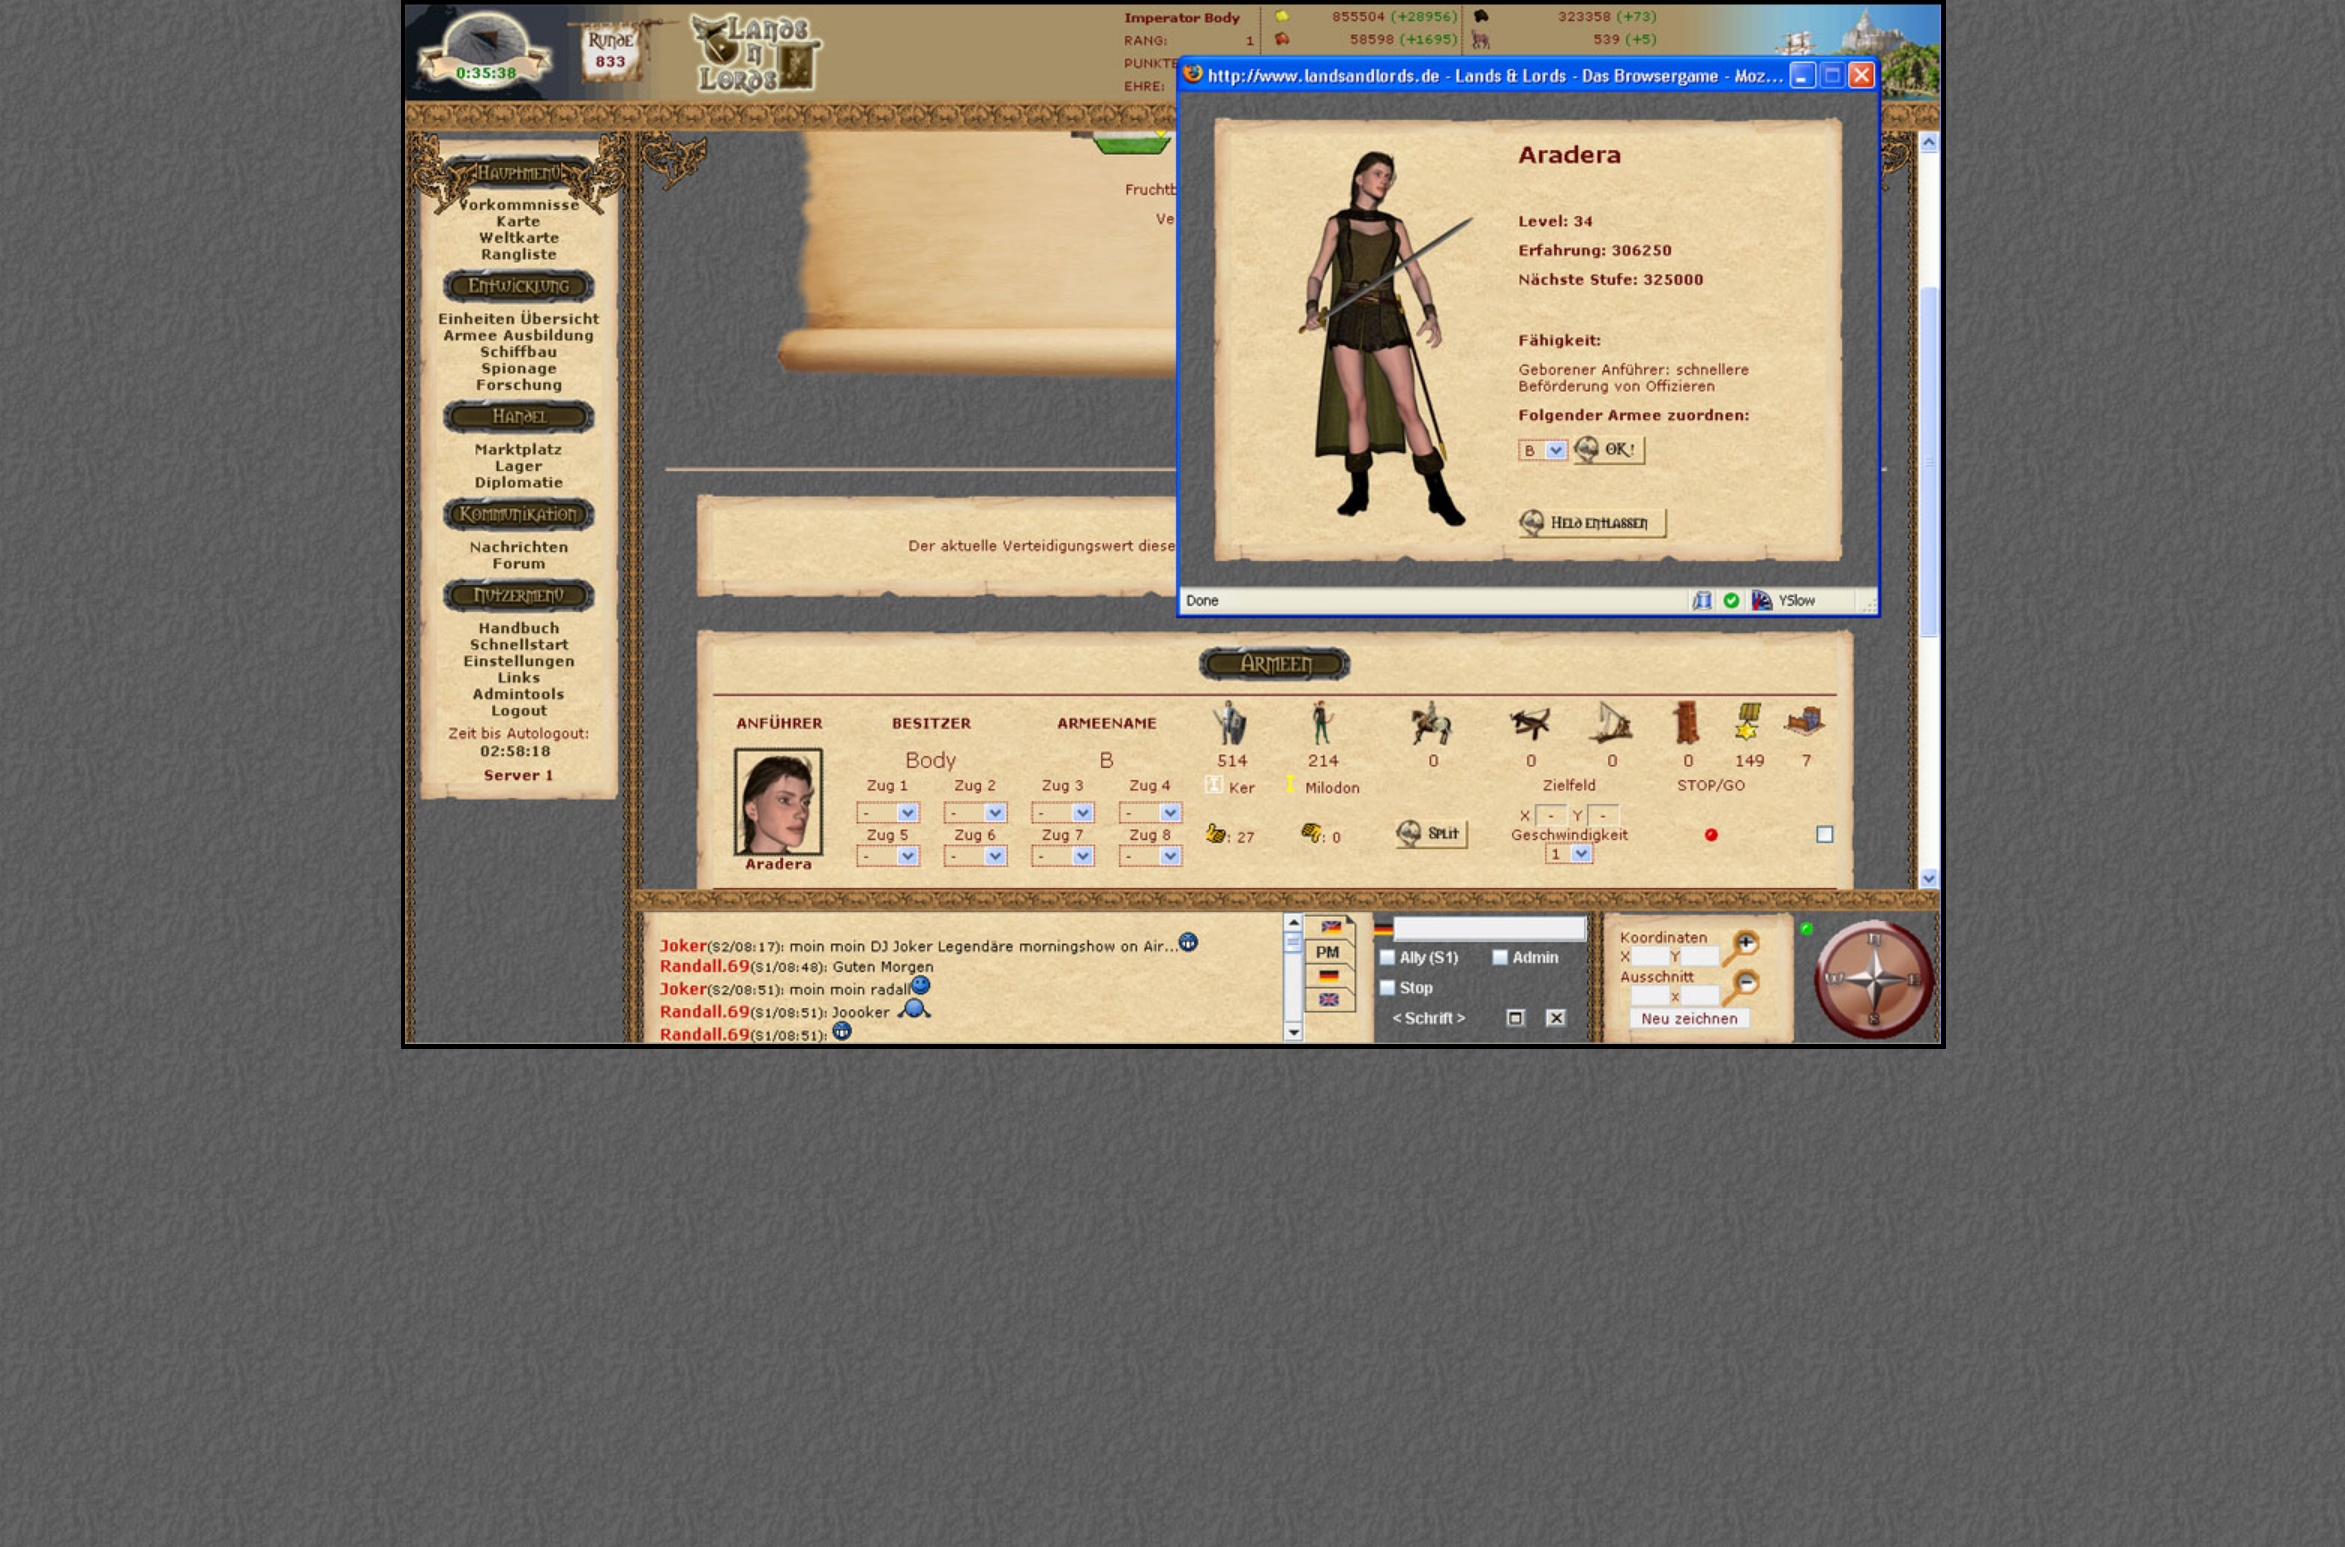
<svg xmlns="http://www.w3.org/2000/svg" width="2345" height="1547" viewBox="0 0 2345 1547">
  <rect width="100%" height="100%" fill="#ffffff"/>
  <image x="0" y="0" width="2345" height="1547" href="img1.png"/>
  <rect x="403.5" y="2.5" width="1540" height="1044" fill="none" stroke="#000000" stroke-width="5"/>
  <image x="405" y="4" width="1536" height="1040" href="img2.png"/>
</svg>
